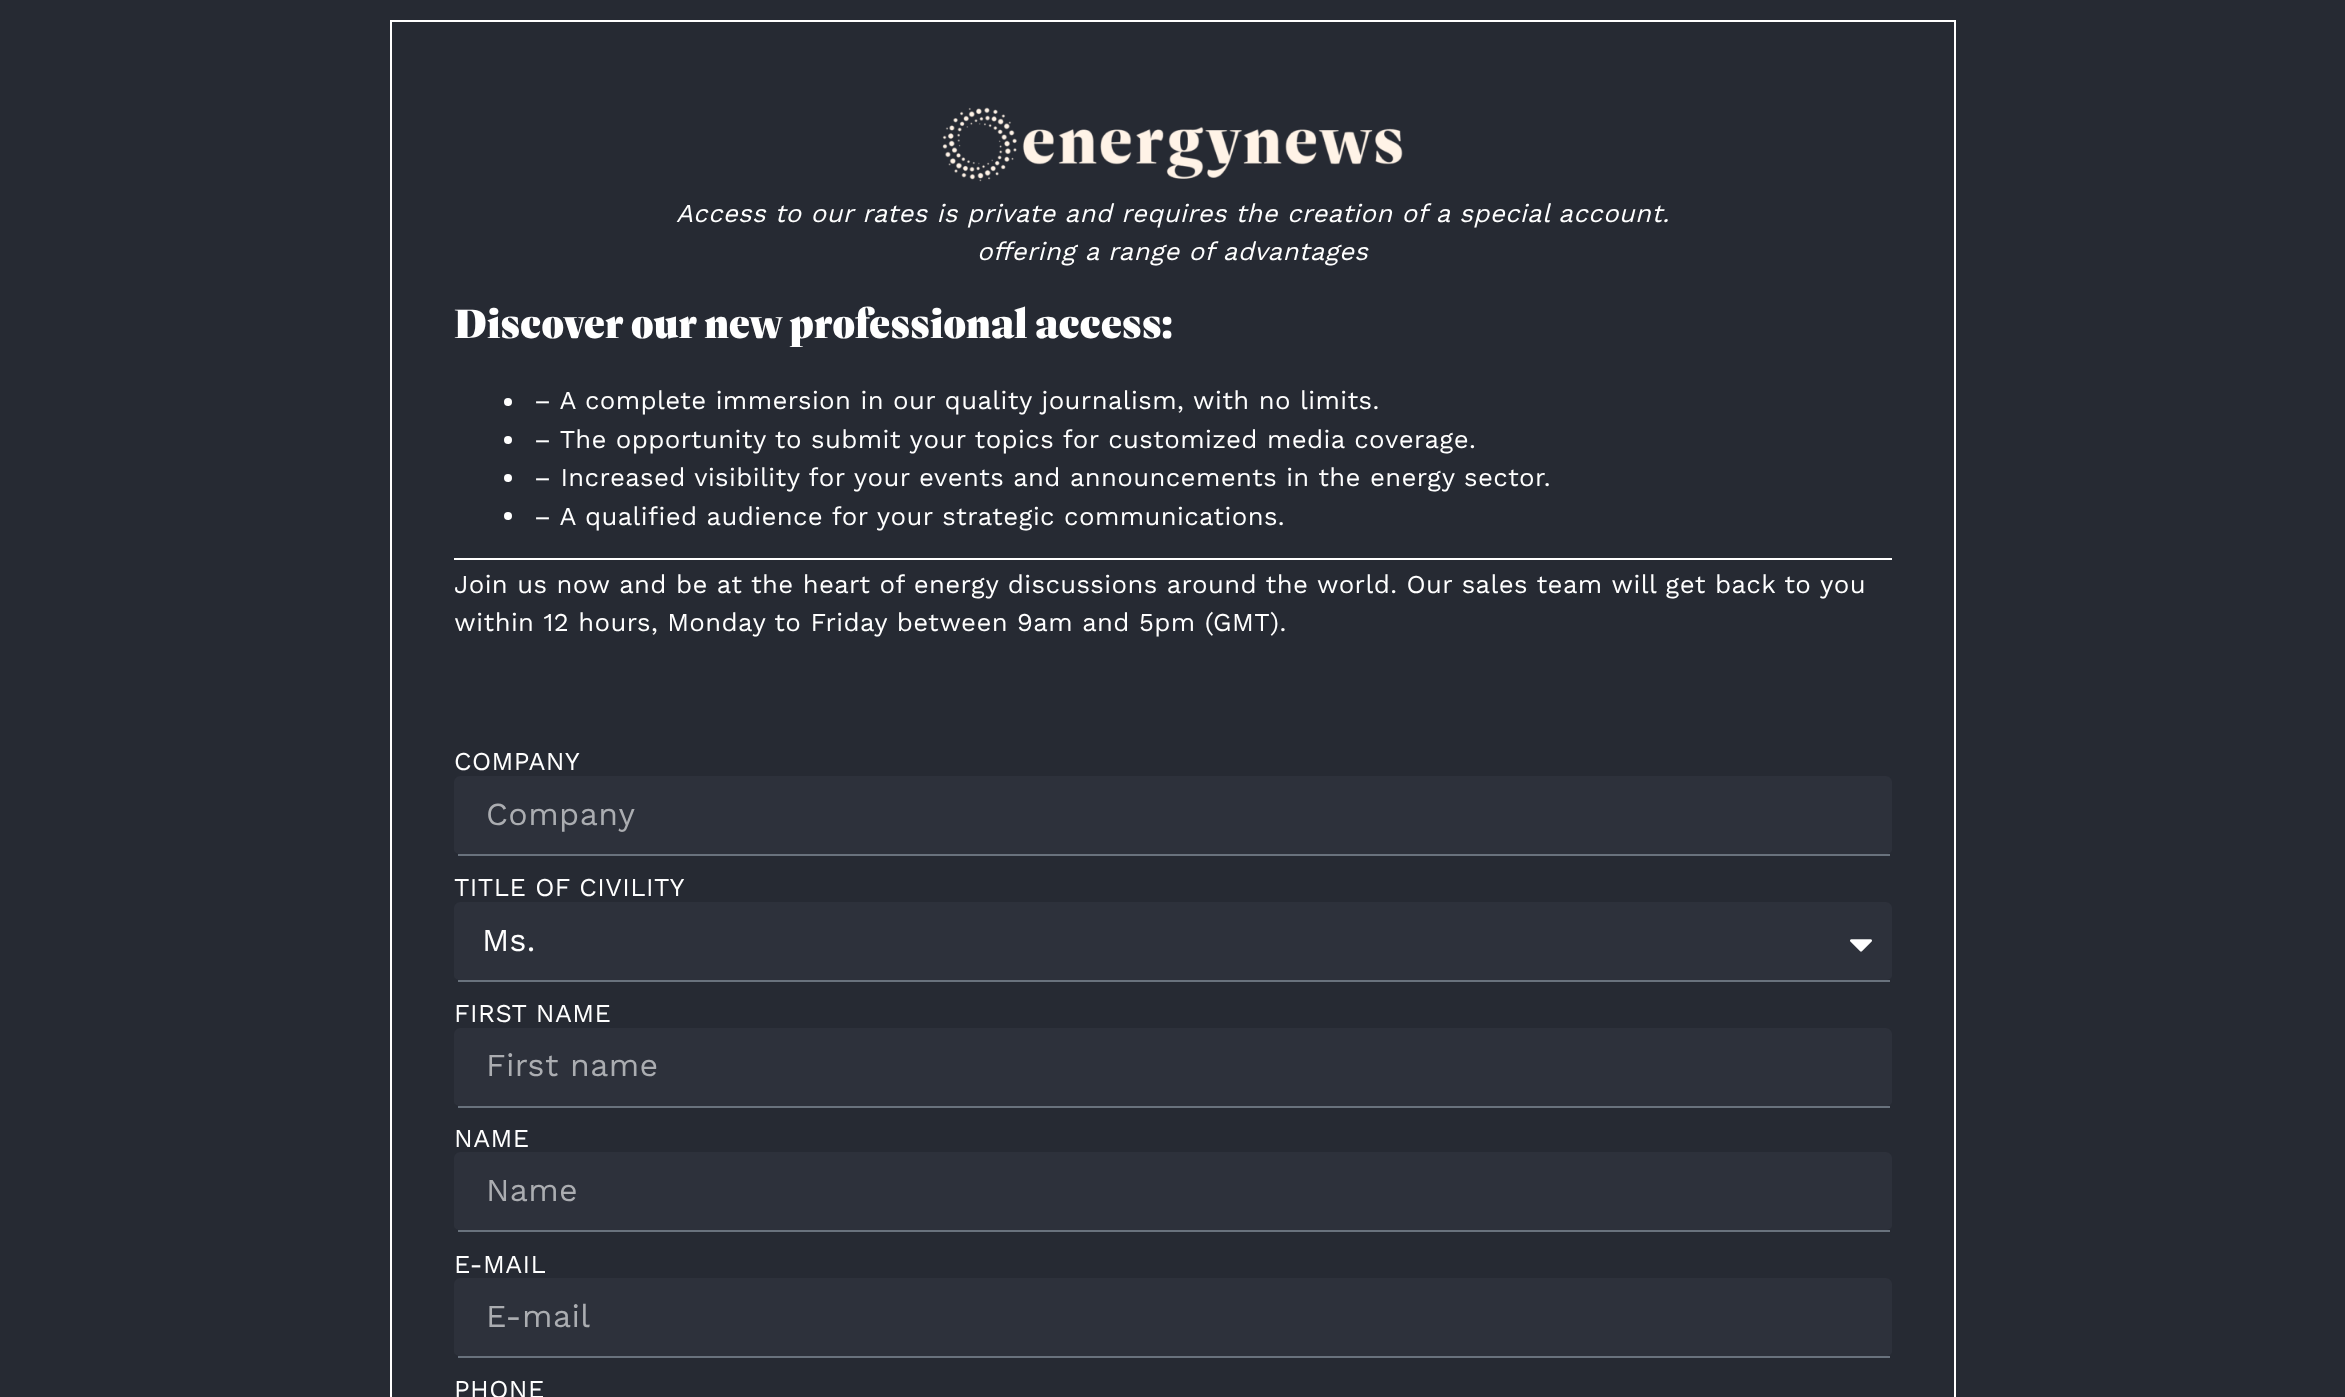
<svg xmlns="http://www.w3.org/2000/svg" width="2345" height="1397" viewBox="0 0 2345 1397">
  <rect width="100%" height="100%" fill="#262a33"/>
  <rect x="391" y="21" width="1564" height="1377" fill="none" stroke="#ffffff" stroke-width="2"/>
  <image x="942" y="107" width="461" height="75" href="img1.png"/>
  <text x="676" y="222" font-family="Work Sans" font-size="25.6" font-style="italic" letter-spacing="0.4" fill="#ffffff">Access to our rates is private and requires the creation of a special account.</text>
  <text x="977" y="260" font-family="Work Sans" font-size="25.6" font-style="italic" letter-spacing="0.4" fill="#ffffff">offering a range of advantages</text>
  <text x="454" y="338" font-family="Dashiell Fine" font-size="41.6" font-weight="900" letter-spacing="0.4" fill="#ffffff">Discover our new professional access:</text>
  <circle cx="508" cy="402" r="4" fill="#ffffff"/>
  <text x="534" y="409" font-family="Work Sans" font-size="25.6" letter-spacing="0.4" fill="#ffffff">– A complete immersion in our quality journalism, with no limits.</text>
  <circle cx="508" cy="440" r="4" fill="#ffffff"/>
  <text x="534" y="448" font-family="Work Sans" font-size="25.6" letter-spacing="0.4" fill="#ffffff">– The opportunity to submit your topics for customized media coverage.</text>
  <circle cx="508" cy="478" r="4" fill="#ffffff"/>
  <text x="534" y="486" font-family="Work Sans" font-size="25.6" letter-spacing="0.4" fill="#ffffff">– Increased visibility for your events and announcements in the energy sector.</text>
  <circle cx="508" cy="516" r="4" fill="#ffffff"/>
  <text x="534" y="525" font-family="Work Sans" font-size="25.6" letter-spacing="0.4" fill="#ffffff">– A qualified audience for your strategic communications.</text>
  <rect x="454" y="558" width="1438" height="2" fill="#ffffff"/>
  <text x="454" y="593" font-family="Work Sans" font-size="25.6" letter-spacing="0.4" fill="#ffffff">Join us now and be at the heart of energy discussions around the world. Our sales team will get back to you</text>
  <text x="454" y="631" font-family="Work Sans" font-size="25.6" letter-spacing="0.4" fill="#ffffff">within 12 hours, Monday to Friday between 9am and 5pm (GMT).</text>
  <text x="454" y="770" font-family="Work Sans" font-size="25.6" letter-spacing="0.4" fill="#ffffff">COMPANY</text>
  <path d="M460 776H1886C1889 776 1892 779 1892 782V850C1892 852 1889 854 1886 854H460C457 854 454 852 454 850V782C454 779 457 776 460 776Z" fill="#2d313b"/>
  <rect x="458" y="854" width="1432" height="2" fill="#69727d"/>
  <text x="486" y="825" font-family="Work Sans" font-size="32" letter-spacing="0.4" fill="#abadb1">Company</text>
  <text x="454" y="896" font-family="Work Sans" font-size="25.6" letter-spacing="0.4" fill="#ffffff">TITLE OF CIVILITY</text>
  <path d="M460 902H1886C1889 902 1892 905 1892 908V976C1892 978 1889 980 1886 980H460C457 980 454 978 454 976V908C454 905 457 902 460 902Z" fill="#2d313b"/>
  <rect x="458" y="980" width="1432" height="2" fill="#69727d"/>
  <text x="482" y="951" font-family="Work Sans" font-size="32" letter-spacing="0.4" fill="#ffffff">Ms.</text>
  <image x="1850" y="939" width="22" height="13" href="img2.png"/>
  <text x="454" y="1022" font-family="Work Sans" font-size="25.6" letter-spacing="0.4" fill="#ffffff">FIRST NAME</text>
  <path d="M460 1028H1886C1889 1028 1892 1031 1892 1034V1102C1892 1104 1889 1106 1886 1106H460C457 1106 454 1104 454 1102V1034C454 1031 457 1028 460 1028Z" fill="#2d313b"/>
  <rect x="458" y="1106" width="1432" height="2" fill="#69727d"/>
  <text x="486" y="1076" font-family="Work Sans" font-size="32" letter-spacing="0.4" fill="#abadb1">First name</text>
  <text x="454" y="1147" font-family="Work Sans" font-size="25.6" letter-spacing="0.4" fill="#ffffff">NAME</text>
  <path d="M460 1152H1886C1889 1152 1892 1155 1892 1158V1226C1892 1228 1889 1230 1886 1230H460C457 1230 454 1228 454 1226V1158C454 1155 457 1152 460 1152Z" fill="#2d313b"/>
  <rect x="458" y="1230" width="1432" height="2" fill="#69727d"/>
  <text x="486" y="1201" font-family="Work Sans" font-size="32" letter-spacing="0.4" fill="#abadb1">Name</text>
  <text x="454" y="1273" font-family="Work Sans" font-size="25.6" letter-spacing="0.4" fill="#ffffff">E-MAIL</text>
  <path d="M460 1278H1886C1889 1278 1892 1281 1892 1284V1352C1892 1354 1889 1356 1886 1356H460C457 1356 454 1354 454 1352V1284C454 1281 457 1278 460 1278Z" fill="#2d313b"/>
  <rect x="458" y="1356" width="1432" height="2" fill="#69727d"/>
  <text x="486" y="1327" font-family="Work Sans" font-size="32" letter-spacing="0.4" fill="#abadb1">E-mail</text>
  <text x="454" y="1398" font-family="Work Sans" font-size="25.6" letter-spacing="0.4" fill="#ffffff">PHONE</text>
</svg>
